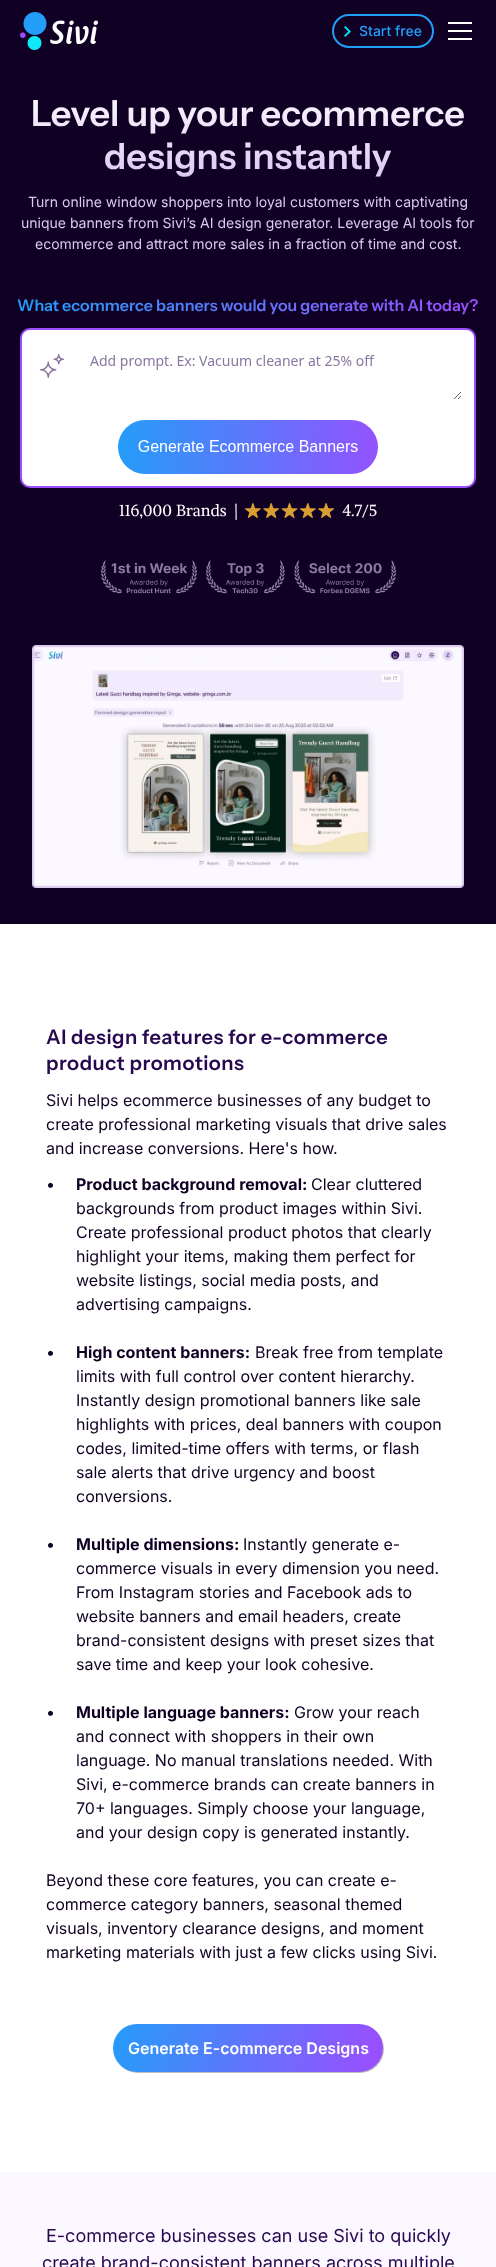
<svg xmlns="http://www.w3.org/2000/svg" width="496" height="2267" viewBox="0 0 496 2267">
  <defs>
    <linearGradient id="g1" gradientUnits="userSpaceOnUse" x1="248" y1="179" x2="248" y2="92"><stop offset="0" stop-color="#dbc9f2"/><stop offset="1" stop-color="#fbf8ff"/></linearGradient>
    <linearGradient id="g2" gradientUnits="userSpaceOnUse" x1="17" y1="305" x2="479" y2="305"><stop offset="0" stop-color="#229ef9"/><stop offset="1" stop-color="#9c4dfe"/></linearGradient>
    <filter id="blur1" x="-50%" y="-200%" width="200%" height="500%"><feGaussianBlur stdDeviation="0.5"/></filter>
    <linearGradient id="g3" gradientUnits="userSpaceOnUse" x1="105" y1="2023" x2="383" y2="2072"><stop offset="0" stop-color="#229ef9"/><stop offset="1" stop-color="#9c4dfe"/></linearGradient>
  </defs>
  <rect width="100%" height="100%" fill="#ffffff"/>
  <rect x="0" y="0" width="496" height="924" fill="#100124"/>
  <image x="20" y="12" width="78" height="38" href="img1.png"/>
  <image x="344" y="26" width="7" height="11" href="img2.png"/>
  <rect x="333" y="15" width="100" height="32" rx="16" fill="none" stroke="#229ef9" stroke-width="2"/>
  <text x="359" y="36" font-family="Inter" font-size="14" font-weight="500" fill="#229ef9">Start free</text>
  <rect x="448" y="22" width="24" height="2" fill="#ffffff"/>
  <rect x="448" y="30" width="24" height="2" fill="#ffffff"/>
  <rect x="448" y="38" width="24" height="2" fill="#ffffff"/>
  <text x="31" y="126" font-family="Instrument Sans" font-size="36" font-weight="600" fill="url(#g1)">Level up your ecommerce</text>
  <text x="104" y="169" font-family="Instrument Sans" font-size="36" font-weight="600" fill="url(#g1)">designs instantly</text>
  <text x="28" y="207" font-family="Inter" font-size="14" fill="#dbc9f2">Turn online window shoppers into loyal customers with captivating</text>
  <text x="21" y="228" font-family="Inter" font-size="14" fill="#dbc9f2">unique banners from Sivi’s AI design generator. Leverage AI tools for</text>
  <text x="35" y="249" font-family="Inter" font-size="14" fill="#dbc9f2">ecommerce and attract more sales in a fraction of time and cost.</text>
  <text x="17" y="311" font-family="Instrument Sans" font-size="16" font-weight="600" fill="url(#g2)">What ecommerce banners would you generate with AI today?</text>
  <image x="20" y="328" width="456" height="160" href="img3.png"/>
  <text x="119" y="516" font-family="Alike Angular" font-size="16" fill="#ffffff" xml:space="preserve">116,000 Brands  |</text>
  <image x="245" y="503" width="89" height="15" href="img4.png"/>
  <text x="342" y="516" font-family="Alike Angular" font-size="16" fill="#ffffff">4.7/5</text>
  <image x="101" y="560" width="295" height="34" href="img5.png"/>
  <image x="32" y="645" width="432" height="243" href="img6.png"/>
  <text x="46" y="1044" font-family="Instrument Sans" font-size="20" font-weight="600" letter-spacing="0.5" fill="#270750">AI design features for e-commerce</text>
  <text x="46" y="1070" font-family="Instrument Sans" font-size="20" font-weight="600" letter-spacing="0.5" fill="#270750">product promotions</text>
  <text x="46" y="1106" font-family="Inter" font-size="16" fill="#100124">Sivi helps ecommerce businesses of any budget to</text>
  <text x="46" y="1130" font-family="Inter" font-size="16" fill="#100124">create professional marketing visuals that drive sales</text>
  <text x="46" y="1154" font-family="Inter" font-size="16" fill="#100124">and increase conversions. Here's how.</text>
  <text x="46" y="1190" font-family="Inter" font-size="16" fill="#100124">•</text>
  <text x="76" y="1190" font-family="Inter" font-size="16" font-weight="bold" fill="#100124">Product background removal:</text>
  <text x="311" y="1190" font-family="Inter" font-size="16" fill="#100124">Clear cluttered</text>
  <text x="76" y="1214" font-family="Inter" font-size="16" fill="#100124">backgrounds from product images within Sivi.</text>
  <text x="76" y="1238" font-family="Inter" font-size="16" fill="#100124">Create professional product photos that clearly</text>
  <text x="76" y="1262" font-family="Inter" font-size="16" fill="#100124">highlight your items, making them perfect for</text>
  <text x="76" y="1286" font-family="Inter" font-size="16" fill="#100124">website listings, social media posts, and</text>
  <text x="76" y="1310" font-family="Inter" font-size="16" fill="#100124">advertising campaigns.</text>
  <text x="46" y="1358" font-family="Inter" font-size="16" fill="#100124">•</text>
  <text x="76" y="1358" font-family="Inter" font-size="16" font-weight="bold" fill="#100124">High content banners:</text>
  <text x="255" y="1358" font-family="Inter" font-size="16" fill="#100124">Break free from template</text>
  <text x="76" y="1382" font-family="Inter" font-size="16" fill="#100124">limits with full control over content hierarchy.</text>
  <text x="76" y="1406" font-family="Inter" font-size="16" fill="#100124">Instantly design promotional banners like sale</text>
  <text x="76" y="1430" font-family="Inter" font-size="16" fill="#100124">highlights with prices, deal banners with coupon</text>
  <text x="76" y="1454" font-family="Inter" font-size="16" fill="#100124">codes, limited-time offers with terms, or flash</text>
  <text x="76" y="1478" font-family="Inter" font-size="16" fill="#100124">sale alerts that drive urgency and boost</text>
  <text x="76" y="1502" font-family="Inter" font-size="16" fill="#100124">conversions.</text>
  <text x="46" y="1550" font-family="Inter" font-size="16" fill="#100124">•</text>
  <text x="76" y="1550" font-family="Inter" font-size="16" font-weight="bold" fill="#100124">Multiple dimensions:</text>
  <text x="243" y="1550" font-family="Inter" font-size="16" fill="#100124">Instantly generate e-</text>
  <text x="76" y="1574" font-family="Inter" font-size="16" fill="#100124">commerce visuals in every dimension you need.</text>
  <text x="76" y="1598" font-family="Inter" font-size="16" fill="#100124">From Instagram stories and Facebook ads to</text>
  <text x="76" y="1622" font-family="Inter" font-size="16" fill="#100124">website banners and email headers, create</text>
  <text x="76" y="1646" font-family="Inter" font-size="16" fill="#100124">brand-consistent designs with preset sizes that</text>
  <text x="76" y="1670" font-family="Inter" font-size="16" fill="#100124">save time and keep your look cohesive.</text>
  <text x="46" y="1718" font-family="Inter" font-size="16" fill="#100124">•</text>
  <text x="76" y="1718" font-family="Inter" font-size="16" font-weight="bold" fill="#100124">Multiple language banners:</text>
  <text x="294" y="1718" font-family="Inter" font-size="16" fill="#100124">Grow your reach</text>
  <text x="76" y="1742" font-family="Inter" font-size="16" fill="#100124">and connect with shoppers in their own</text>
  <text x="76" y="1766" font-family="Inter" font-size="16" fill="#100124">language. No manual translations needed. With</text>
  <text x="76" y="1790" font-family="Inter" font-size="16" fill="#100124">Sivi, e-commerce brands can create banners in</text>
  <text x="76" y="1814" font-family="Inter" font-size="16" fill="#100124">70+ languages. Simply choose your language,</text>
  <text x="76" y="1838" font-family="Inter" font-size="16" fill="#100124">and your design copy is generated instantly.</text>
  <text x="46" y="1886" font-family="Inter" font-size="16" fill="#100124">Beyond these core features, you can create e-</text>
  <text x="46" y="1910" font-family="Inter" font-size="16" fill="#100124">commerce category banners, seasonal themed</text>
  <text x="46" y="1934" font-family="Inter" font-size="16" fill="#100124">visuals, inventory clearance designs, and moment</text>
  <text x="46" y="1958" font-family="Inter" font-size="16" fill="#100124">marketing materials with just a few clicks using Sivi.</text>
  <rect x="114" y="2025" width="270" height="48" rx="24" fill="#000000" fill-opacity="0.25" filter="url(#blur1)"/>
  <rect x="113" y="2024" width="270" height="48" rx="24" fill="url(#g3)"/>
  <text x="128" y="2054" font-family="Inter" font-size="16" font-weight="600" fill="#ffffff">Generate E-commerce Designs</text>
  <rect x="0" y="2172" width="496" height="95" fill="#fbf8ff"/>
  <text x="46" y="2242" font-family="Inter" font-size="18" fill="#270750">E-commerce businesses can use Sivi to quickly</text>
  <text x="42" y="2269" font-family="Inter" font-size="18" fill="#270750">create brand-consistent banners across multiple</text>
</svg>
